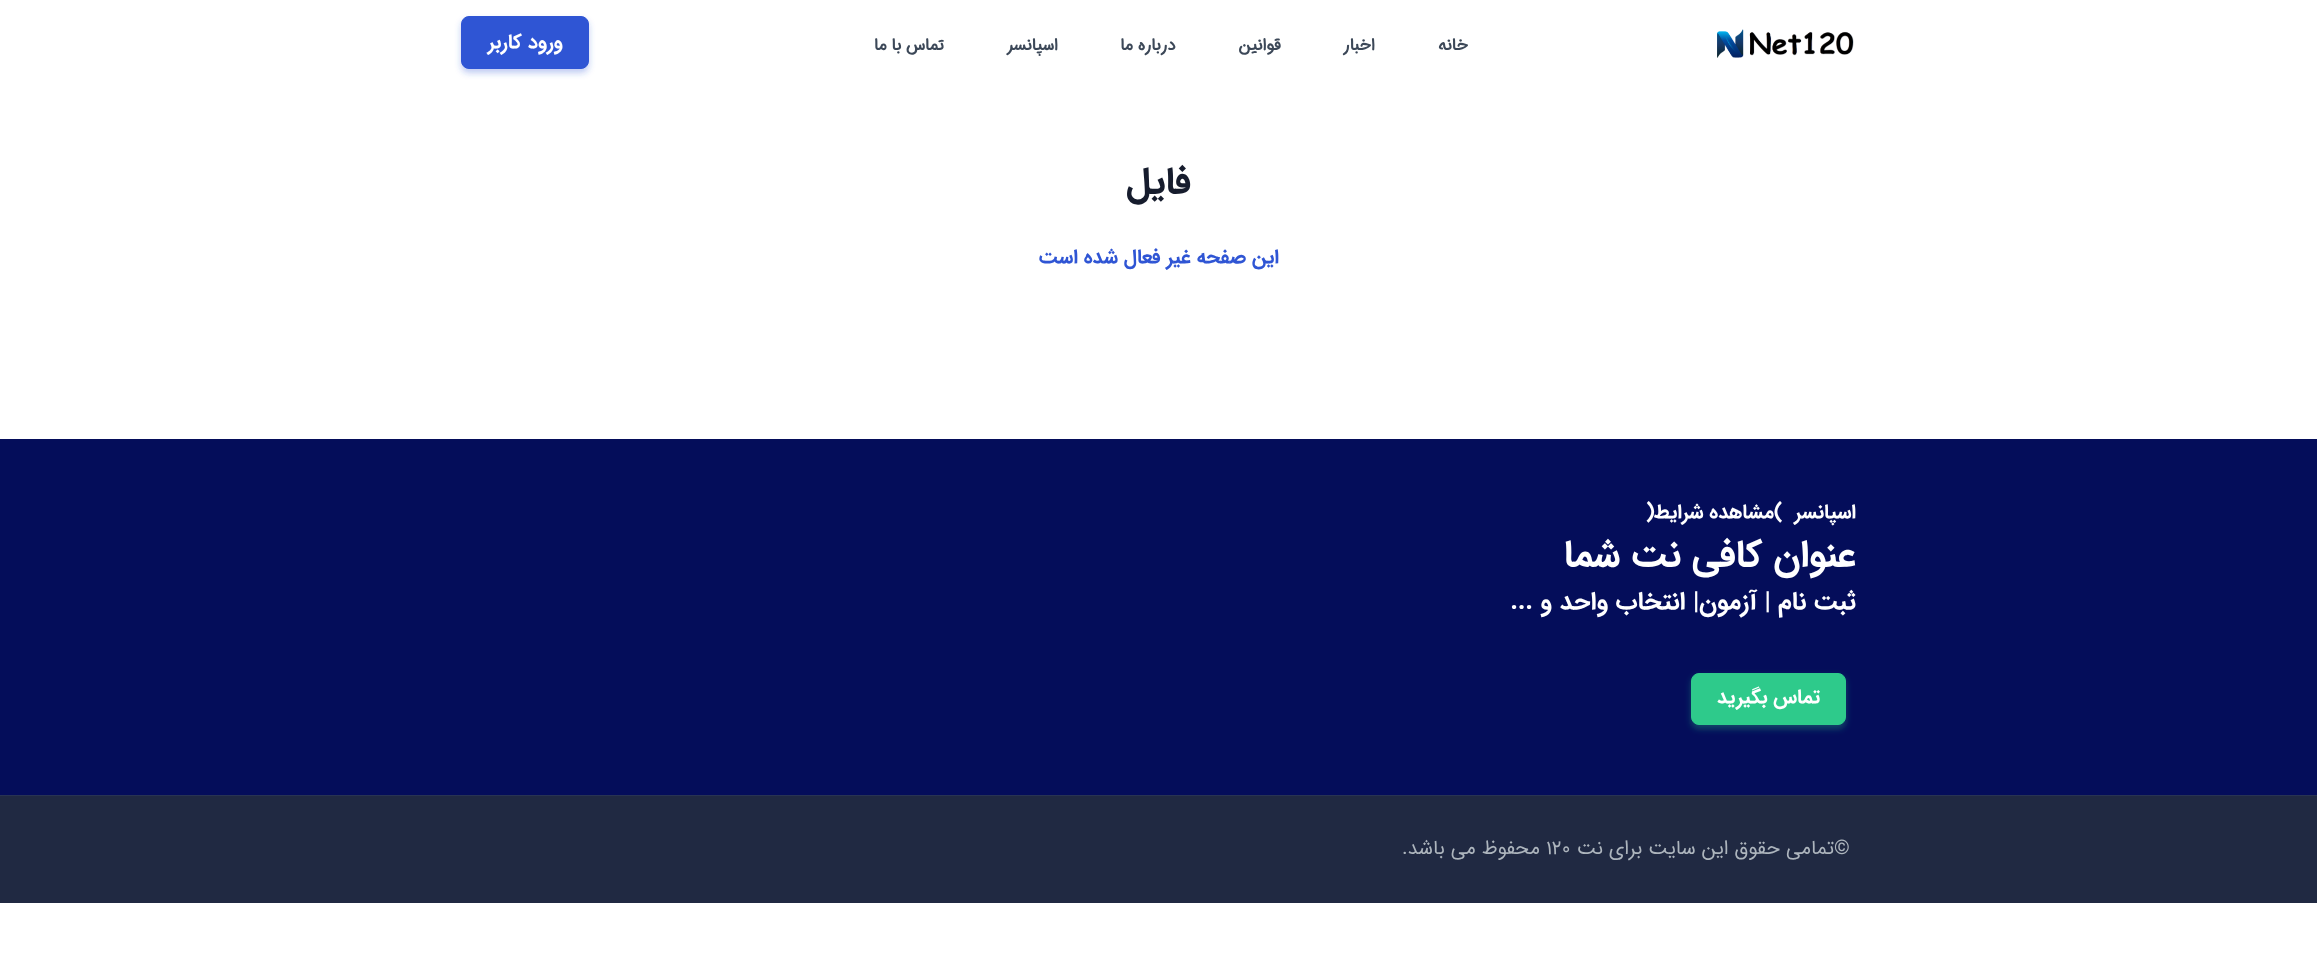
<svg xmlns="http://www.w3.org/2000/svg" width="2317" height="977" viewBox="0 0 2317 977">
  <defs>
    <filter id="blur1" x="-50%" y="-200%" width="200%" height="500%"><feGaussianBlur stdDeviation="3"/></filter>
  </defs>
  <rect width="100%" height="100%" fill="#ffffff"/>
  <image x="1717" y="29" width="137" height="29" href="img1.png"/>
  <text x="1468" y="50" font-family="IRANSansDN" font-size="16.25" font-weight="bold" direction="rtl" fill="#3c4858">خانه</text>
  <text x="1375" y="50" font-family="IRANSansDN" font-size="16.25" font-weight="bold" direction="rtl" fill="#3c4858">اخبار</text>
  <text x="1281" y="50" font-family="IRANSansDN" font-size="16.25" font-weight="bold" direction="rtl" fill="#3c4858">قوانین</text>
  <text x="1176" y="50" font-family="IRANSansDN" font-size="16.25" font-weight="bold" direction="rtl" fill="#3c4858">درباره ما</text>
  <text x="1058" y="50" font-family="IRANSansDN" font-size="16.25" font-weight="bold" direction="rtl" fill="#3c4858">اسپانسر</text>
  <text x="944" y="50" font-family="IRANSansDN" font-size="16.25" font-weight="bold" direction="rtl" fill="#3c4858">تماس با ما</text>
  <rect x="461" y="20" width="128" height="53" rx="8" fill="#2f55d4" fill-opacity="0.3" filter="url(#blur1)"/>
  <rect x="461.5" y="16.5" width="127" height="52" rx="7.5" fill="#2f55d4" stroke="#2f55d4"/>
  <text x="563" y="48" font-family="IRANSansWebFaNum" font-size="20" font-weight="bold" direction="rtl" fill="#ffffff">ورود کاربر</text>
  <text x="1191" y="193" font-family="IRANSansWebFaNum" font-size="37.5" font-weight="bold" direction="rtl" fill="#161c2d">فایل</text>
  <text x="1279" y="263" font-family="IRANSansWebFaNum" font-size="20" font-weight="bold" direction="rtl" fill="#2f55d4">این صفحه غیر فعال شده است</text>
  <rect x="0" y="439" width="2317" height="356" fill="#040d5a"/>
  <text x="1856" y="518" font-family="IRANSansWebFaNum" font-size="20" font-weight="bold" direction="rtl" fill="#ffffff">اسپانسر</text>
  <text x="1774" y="518" font-family="IRANSansWebFaNum" font-size="20" font-weight="bold" fill="#ffffff">(</text>
  <text x="1774" y="518" font-family="IRANSansWebFaNum" font-size="20" font-weight="bold" direction="rtl" fill="#ffffff">مشاهده شرایط</text>
  <text x="1646" y="518" font-family="IRANSansWebFaNum" font-size="20" font-weight="bold" fill="#ffffff">)</text>
  <text x="1856" y="566" font-family="IRANSansWebFaNum" font-size="37.5" font-weight="bold" direction="rtl" fill="#ffffff">عنوان کافی نت شما</text>
  <text x="1856" y="609" font-family="IRANSansWebFaNum" font-size="25" font-weight="bold" direction="rtl" fill="#ffffff">ثبت نام | آزمون| انتخاب واحد و ...</text>
  <rect x="1691" y="676" width="155" height="53" rx="8" fill="#2eca8b" fill-opacity="0.3" filter="url(#blur1)"/>
  <rect x="1691.5" y="673.5" width="154" height="51" rx="7.5" fill="#2eca8b" stroke="#2eca8b"/>
  <text x="1820" y="703" font-family="IRANSansWebFaNum" font-size="20" font-weight="bold" direction="rtl" fill="#ffffff">تماس بگیرید</text>
  <rect x="0" y="796" width="2317" height="107" fill="#202942"/>
  <rect x="0" y="795" width="2317" height="1" fill="#283353"/>
  <text x="1834" y="854" font-family="IRANSansWebFaNum" font-size="20" fill="#adb5bd">©</text>
  <text x="1834" y="854" font-family="IRANSansWebFaNum" font-size="20" direction="rtl" fill="#adb5bd">تمامی حقوق این سایت برای</text>
  <text x="1603" y="854" font-family="IRANSansWebFaNum" font-size="20" direction="rtl" fill="#adb5bd">نت</text>
  <text x="1546" y="854" font-family="IRANSansWebFaNum" font-size="20" fill="#adb5bd">120</text>
  <text x="1540" y="854" font-family="IRANSansWebFaNum" font-size="20" direction="rtl" fill="#adb5bd">محفوظ می باشد.</text>
</svg>
